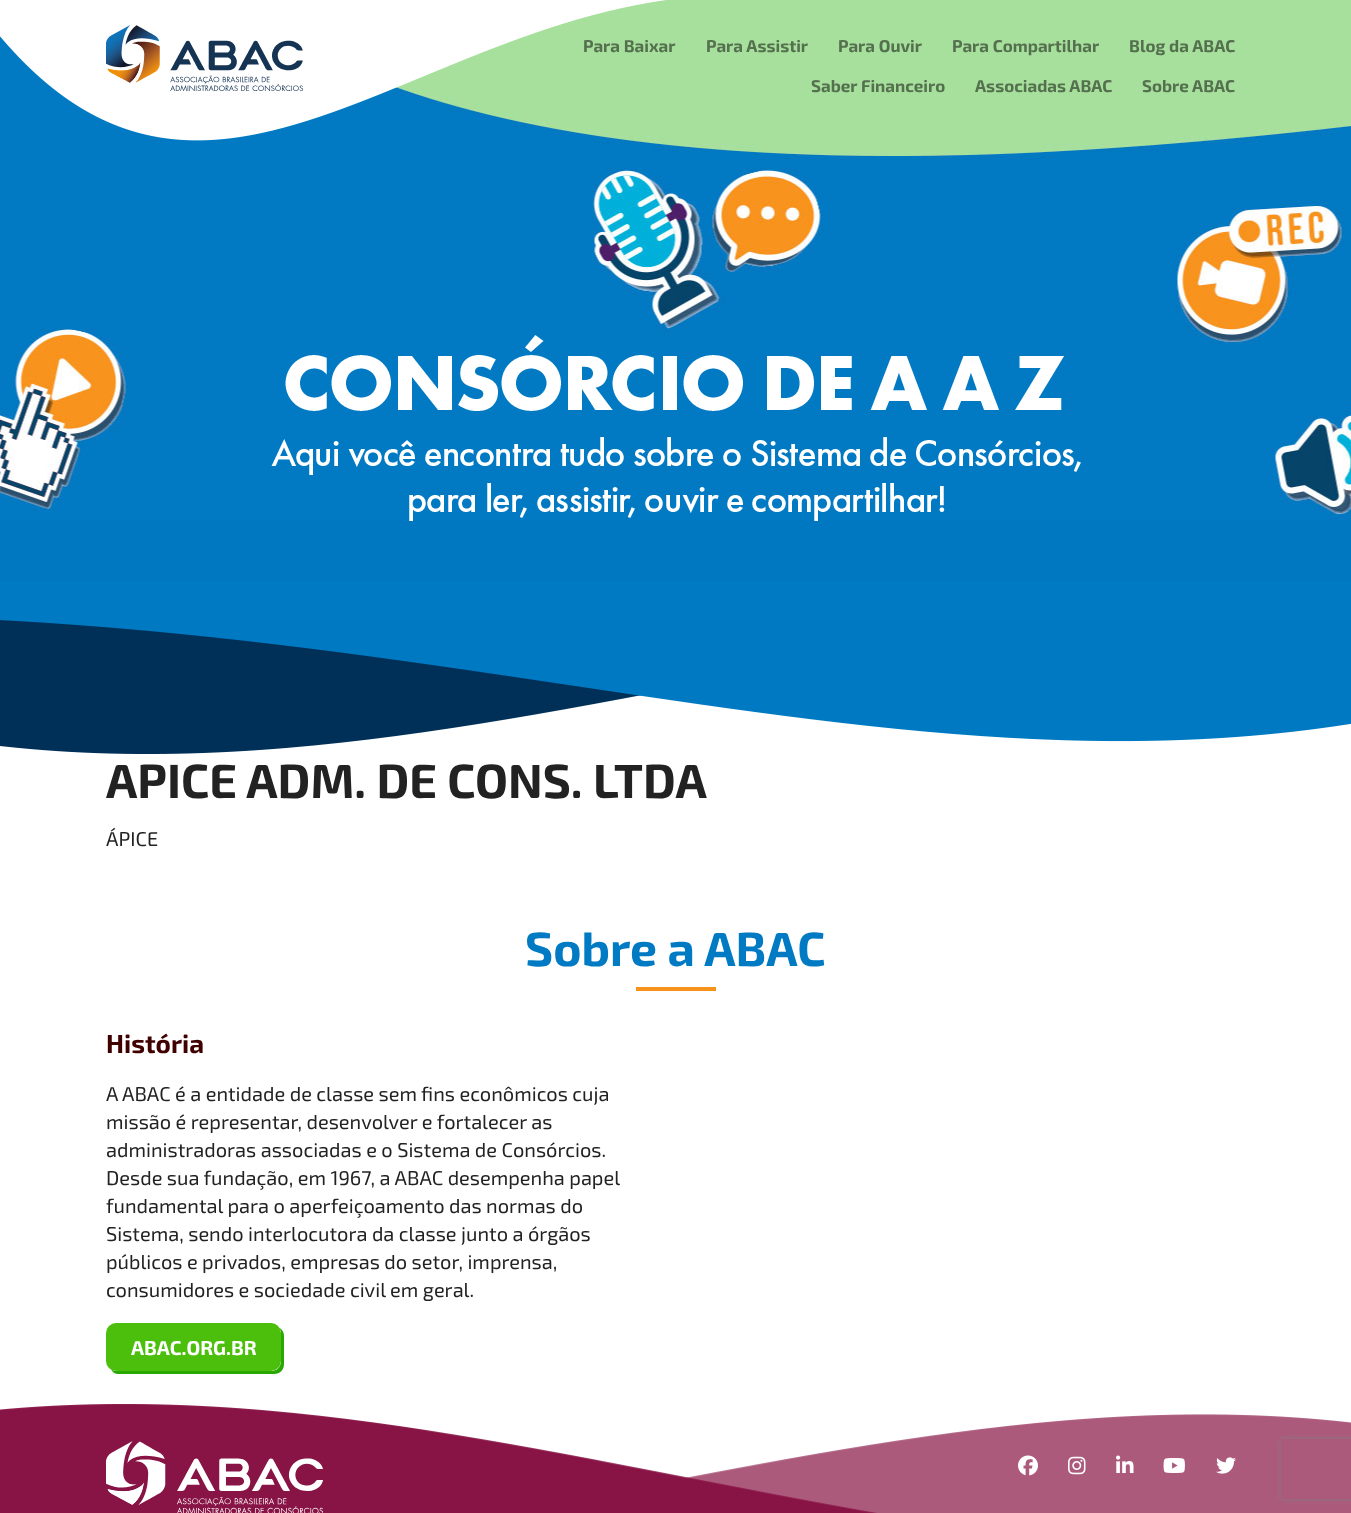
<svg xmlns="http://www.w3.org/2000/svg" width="1351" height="1513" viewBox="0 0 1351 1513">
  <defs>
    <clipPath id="clip1"><path d="M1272 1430H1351V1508H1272ZM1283 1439H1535C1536 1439 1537 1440 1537 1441V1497C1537 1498 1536 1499 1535 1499H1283C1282 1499 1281 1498 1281 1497V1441C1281 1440 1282 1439 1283 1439Z" clip-rule="evenodd"/></clipPath>
    <filter id="blur1" x="-50%" y="-200%" width="200%" height="500%"><feGaussianBlur stdDeviation="2.5"/></filter>
  </defs>
  <rect width="100%" height="100%" fill="#ffffff"/>
  <rect x="0" y="520" width="1351" height="61" fill="#0078c1"/>
  <image x="0" y="0" width="1351" height="520" href="img1.png"/>
  <image x="0" y="0" width="666" height="141" href="img2.png"/>
  <image x="106" y="25" width="197" height="66" href="img3.png"/>
  <text x="583" y="52" font-family="'Exo 2'" font-size="17" font-weight="bold" fill="#54704e">Para Baixar</text>
  <text x="706" y="52" font-family="'Exo 2'" font-size="17" font-weight="bold" fill="#54704e">Para Assistir</text>
  <text x="838" y="52" font-family="'Exo 2'" font-size="17" font-weight="bold" fill="#54704e">Para Ouvir</text>
  <text x="952" y="52" font-family="'Exo 2'" font-size="17" font-weight="bold" fill="#54704e">Para Compartilhar</text>
  <text x="1129" y="52" font-family="'Exo 2'" font-size="17" font-weight="bold" fill="#54704e">Blog da ABAC</text>
  <text x="811" y="92" font-family="'Exo 2'" font-size="17" font-weight="bold" fill="#54704e">Saber Financeiro</text>
  <text x="975" y="92" font-family="'Exo 2'" font-size="17" font-weight="bold" fill="#54704e">Associadas ABAC</text>
  <text x="1142" y="92" font-family="'Exo 2'" font-size="17" font-weight="bold" fill="#54704e">Sobre ABAC</text>
  <image x="271" y="335" width="810" height="186" href="img4.png"/>
  <rect x="0" y="581" width="1351" height="39" fill="#007ac3"/>
  <image x="0" y="620" width="1351" height="134" href="img5.png"/>
  <text x="106" y="798" font-family="'Exo 2'" font-size="48" font-weight="bold" fill="#222222">APICE ADM. DE CONS. LTDA</text>
  <text x="106" y="846" font-family="'Exo 2'" font-size="20" fill="#222222">ÁPICE</text>
  <text x="525" y="966" font-family="'Exo 2'" font-size="48" font-weight="bold" fill="#007ac3">Sobre a ABAC</text>
  <rect x="636" y="987" width="80" height="4" fill="#f7931d"/>
  <text x="106" y="1053" font-family="'Exo 2'" font-size="26" font-weight="bold" fill="#400000">História</text>
  <text x="106" y="1101" font-family="'Exo 2'" font-size="20" fill="#222222">A ABAC é a entidade de classe sem fins econômicos cuja</text>
  <text x="106" y="1129" font-family="'Exo 2'" font-size="20" fill="#222222">missão é representar, desenvolver e fortalecer as</text>
  <text x="106" y="1157" font-family="'Exo 2'" font-size="20" fill="#222222">administradoras associadas e o Sistema de Consórcios.</text>
  <text x="106" y="1185" font-family="'Exo 2'" font-size="20" fill="#222222">Desde sua fundação, em 1967, a ABAC desempenha papel</text>
  <text x="106" y="1213" font-family="'Exo 2'" font-size="20" fill="#222222">fundamental para o aperfeiçoamento das normas do</text>
  <text x="106" y="1241" font-family="'Exo 2'" font-size="20" fill="#222222">Sistema, sendo interlocutora da classe junto a órgãos</text>
  <text x="106" y="1269" font-family="'Exo 2'" font-size="20" fill="#222222">públicos e privados, empresas do setor, imprensa,</text>
  <text x="106" y="1297" font-family="'Exo 2'" font-size="20" fill="#222222">consumidores e sociedade civil em geral.</text>
  <path d="M111 1369C112 1372 115 1374 119 1374H274C280 1374 284 1370 284 1364V1336C284 1332 282 1329 279 1328C280 1329 281 1331 281 1333V1361C281 1367 277 1371 271 1371H116C114 1371 112 1370 111 1369Z" fill="#28a800"/>
  <rect x="106" y="1323" width="175" height="48" rx="10" fill="#4bbf0b"/>
  <text x="131" y="1355" font-family="'Exo 2'" font-size="20" font-weight="bold" fill="#ffffff">ABAC.ORG.BR</text>
  <image x="0" y="1401" width="1351" height="112" href="img6.png"/>
  <image x="106" y="1441" width="217" height="72" href="img7.png"/>
  <image x="1018" y="1455" width="20" height="21" href="img8.png"/>
  <image x="1068" y="1456" width="18" height="19" href="img9.png"/>
  <image x="1116" y="1455" width="18" height="18" href="img10.png"/>
  <image x="1163" y="1458" width="22" height="15" href="img11.png"/>
  <image x="1216" y="1457" width="20" height="17" href="img12.png"/>
  <g clip-path="url(#clip1)">
    <rect x="1281" y="1439" width="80" height="60" rx="2" fill="#808080" filter="url(#blur1)"/>
  </g>
</svg>
